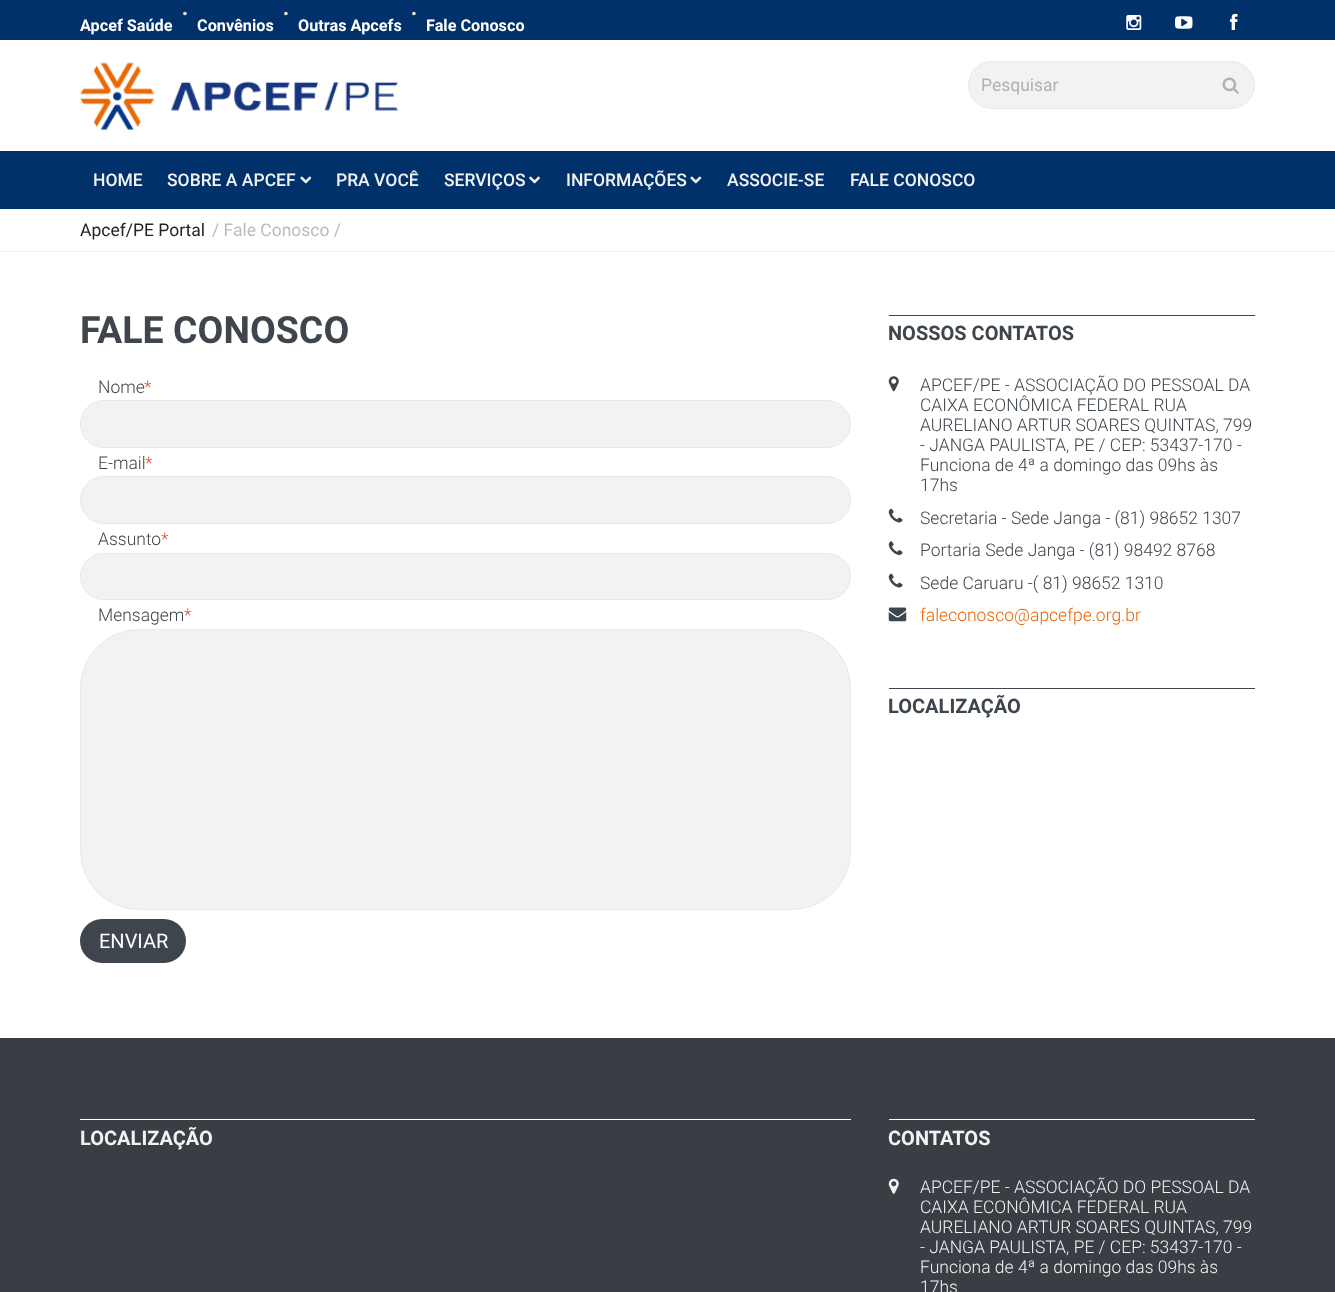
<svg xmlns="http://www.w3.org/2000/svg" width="1335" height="1292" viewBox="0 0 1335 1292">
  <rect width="100%" height="100%" fill="#ffffff"/>
  <rect x="0" y="0" width="1335" height="40" fill="#00316b"/>
  <text x="80" y="31" font-family="Roboto" font-size="16.25" font-weight="bold" fill="#ffffff">Apcef Saúde</text>
  <text x="181" y="15" font-family="Roboto" font-size="31" fill="#e6e6e7">.</text>
  <text x="197" y="31" font-family="Roboto" font-size="16.25" font-weight="bold" fill="#ffffff">Convênios</text>
  <text x="282" y="15" font-family="Roboto" font-size="31" fill="#e6e6e7">.</text>
  <text x="298" y="31" font-family="Roboto" font-size="16.25" font-weight="bold" fill="#ffffff">Outras Apcefs</text>
  <text x="410" y="15" font-family="Roboto" font-size="31" fill="#e6e6e7">.</text>
  <text x="426" y="31" font-family="Roboto" font-size="16.25" font-weight="bold" fill="#ffffff">Fale Conosco</text>
  <image x="1126" y="15" width="16" height="15" href="img1.png"/>
  <image x="1175" y="16" width="18" height="13" href="img2.png"/>
  <image x="1230" y="13" width="8" height="17" href="img3.png"/>
  <image x="80" y="62" width="318" height="68" href="img4.png"/>
  <rect x="968.5" y="61.5" width="286" height="47" rx="23.5" fill="#f2f2f2" stroke="#e8e8e8"/>
  <text x="981" y="91" font-family="Roboto" font-size="17.5" fill="#b0b1b4">Pesquisar</text>
  <image x="1222" y="77" width="17" height="17" href="img5.png"/>
  <rect x="0" y="151" width="1335" height="58" fill="#00316b"/>
  <text x="93" y="186" font-family="Roboto" font-size="17.5" font-weight="500" fill="#f2f2f2">HOME</text>
  <text x="167" y="186" font-family="Roboto" font-size="17.5" font-weight="500" fill="#f2f2f2">SOBRE A APCEF</text>
  <image x="300" y="176" width="12" height="8" href="img6.png"/>
  <text x="336" y="186" font-family="Roboto" font-size="17.5" font-weight="500" fill="#f2f2f2">PRA VOCÊ</text>
  <text x="444" y="186" font-family="Roboto" font-size="17.5" font-weight="500" fill="#f2f2f2">SERVIÇOS</text>
  <image x="529" y="176" width="11" height="8" href="img7.png"/>
  <text x="566" y="186" font-family="Roboto" font-size="17.5" font-weight="500" fill="#f2f2f2">INFORMAÇÕES</text>
  <image x="690" y="176" width="12" height="8" href="img6.png"/>
  <text x="727" y="186" font-family="Roboto" font-size="17.5" font-weight="500" fill="#f2f2f2">ASSOCIE-SE</text>
  <text x="850" y="186" font-family="Roboto" font-size="17.5" font-weight="500" fill="#f2f2f2">FALE CONOSCO</text>
  <rect x="0" y="251" width="1335" height="1" fill="#f2f2f2"/>
  <text x="80" y="236" font-family="Roboto" font-size="17.5" fill="#212428">Apcef/PE Portal</text>
  <text x="212" y="236" font-family="Roboto" font-size="17.5" fill="#bbbbbe">/ Fale Conosco /</text>
  <text x="80" y="343" font-family="Roboto" font-size="37.5" font-weight="bold" fill="#3e454c">FALE CONOSCO</text>
  <text x="98" y="393" font-family="Roboto" font-size="17.5" font-weight="300" fill="#3e454c">Nome</text>
  <text x="144" y="393" font-family="Roboto" font-size="17.5" font-weight="300" fill="#ee4432">*</text>
  <rect x="80.5" y="400.5" width="770" height="47" rx="23.5" fill="#f2f2f2" stroke="#e8e8e8"/>
  <text x="98" y="469" font-family="Roboto" font-size="17.5" font-weight="300" fill="#3e454c">E-mail</text>
  <text x="145" y="469" font-family="Roboto" font-size="17.5" font-weight="300" fill="#ee4432">*</text>
  <rect x="80.5" y="476.5" width="770" height="47" rx="23.5" fill="#f2f2f2" stroke="#e8e8e8"/>
  <text x="98" y="545" font-family="Roboto" font-size="17.5" font-weight="300" fill="#3e454c">Assunto</text>
  <text x="161" y="545" font-family="Roboto" font-size="17.5" font-weight="300" fill="#ee4432">*</text>
  <rect x="80.5" y="553.5" width="770" height="46" rx="23" fill="#f2f2f2" stroke="#e8e8e8"/>
  <text x="98" y="621" font-family="Roboto" font-size="17.5" font-weight="300" fill="#3e454c">Mensagem</text>
  <text x="184" y="621" font-family="Roboto" font-size="17.5" font-weight="300" fill="#ee4432">*</text>
  <rect x="80.5" y="629.5" width="770" height="280" rx="58.5" fill="#f2f2f2" stroke="#e8e8e8"/>
  <rect x="80" y="919" width="106" height="44" rx="22" fill="#3e454c"/>
  <text x="99" y="948" font-family="Roboto" font-size="20" fill="#ffffff">ENVIAR</text>
  <rect x="889" y="315" width="366" height="1" fill="#3e454c"/>
  <text x="888" y="340" font-family="Roboto" font-size="20" font-weight="bold" fill="#3e454c">NOSSOS CONTATOS</text>
  <image x="888" y="376" width="11" height="16" href="img8.png"/>
  <text x="920" y="391" font-family="Roboto" font-size="17.5" font-weight="300" fill="#3e454c">APCEF/PE - ASSOCIAÇÃO DO PESSOAL DA</text>
  <text x="920" y="411" font-family="Roboto" font-size="17.5" font-weight="300" fill="#3e454c">CAIXA ECONÔMICA FEDERAL RUA</text>
  <text x="920" y="431" font-family="Roboto" font-size="17.5" font-weight="300" fill="#3e454c">AURELIANO ARTUR SOARES QUINTAS, 799</text>
  <text x="920" y="451" font-family="Roboto" font-size="17.5" font-weight="300" fill="#3e454c">- JANGA PAULISTA, PE / CEP: 53437-170 -</text>
  <text x="920" y="471" font-family="Roboto" font-size="17.5" font-weight="300" fill="#3e454c">Funciona de 4ª a domingo das 09hs às</text>
  <text x="920" y="491" font-family="Roboto" font-size="17.5" font-weight="300" fill="#3e454c">17hs</text>
  <image x="888" y="508" width="15" height="15" href="img9.png"/>
  <text x="920" y="524" font-family="Roboto" font-size="17.5" font-weight="300" fill="#3e454c">Secretaria - Sede Janga - (81) 98652 1307</text>
  <image x="888" y="541" width="15" height="14" href="img10.png"/>
  <text x="920" y="556" font-family="Roboto" font-size="17.5" font-weight="300" fill="#3e454c">Portaria Sede Janga - (81) 98492 8768</text>
  <image x="888" y="573" width="15" height="15" href="img9.png"/>
  <text x="920" y="589" font-family="Roboto" font-size="17.5" font-weight="300" fill="#3e454c">Sede Caruaru -( 81) 98652 1310</text>
  <image x="888" y="607" width="19" height="15" href="img11.png"/>
  <text x="920" y="621" font-family="Roboto" font-size="17.5" font-weight="300" fill="#eb6608">faleconosco@apcefpe.org.br</text>
  <rect x="889" y="688" width="366" height="1" fill="#3e454c"/>
  <text x="888" y="713" font-family="Roboto" font-size="20" font-weight="bold" fill="#3e454c">LOCALIZAÇÃO</text>
  <rect x="0" y="1038" width="1335" height="254" fill="#383e44"/>
  <rect x="80" y="1119" width="771" height="1" fill="#ffffff"/>
  <text x="80" y="1145" font-family="Roboto" font-size="20" font-weight="bold" fill="#f2f2f2">LOCALIZAÇÃO</text>
  <rect x="889" y="1119" width="366" height="1" fill="#ffffff"/>
  <text x="888" y="1145" font-family="Roboto" font-size="20" font-weight="bold" fill="#f2f2f2">CONTATOS</text>
  <image x="888" y="1178" width="11" height="16" href="img12.png"/>
  <text x="920" y="1193" font-family="Roboto" font-size="17.5" font-weight="300" fill="#f2f2f2">APCEF/PE - ASSOCIAÇÃO DO PESSOAL DA</text>
  <text x="920" y="1213" font-family="Roboto" font-size="17.5" font-weight="300" fill="#f2f2f2">CAIXA ECONÔMICA FEDERAL RUA</text>
  <text x="920" y="1233" font-family="Roboto" font-size="17.5" font-weight="300" fill="#f2f2f2">AURELIANO ARTUR SOARES QUINTAS, 799</text>
  <text x="920" y="1253" font-family="Roboto" font-size="17.5" font-weight="300" fill="#f2f2f2">- JANGA PAULISTA, PE / CEP: 53437-170 -</text>
  <text x="920" y="1273" font-family="Roboto" font-size="17.5" font-weight="300" fill="#f2f2f2">Funciona de 4ª a domingo das 09hs às</text>
  <text x="920" y="1293" font-family="Roboto" font-size="17.5" font-weight="300" fill="#f2f2f2">17hs</text>
</svg>
